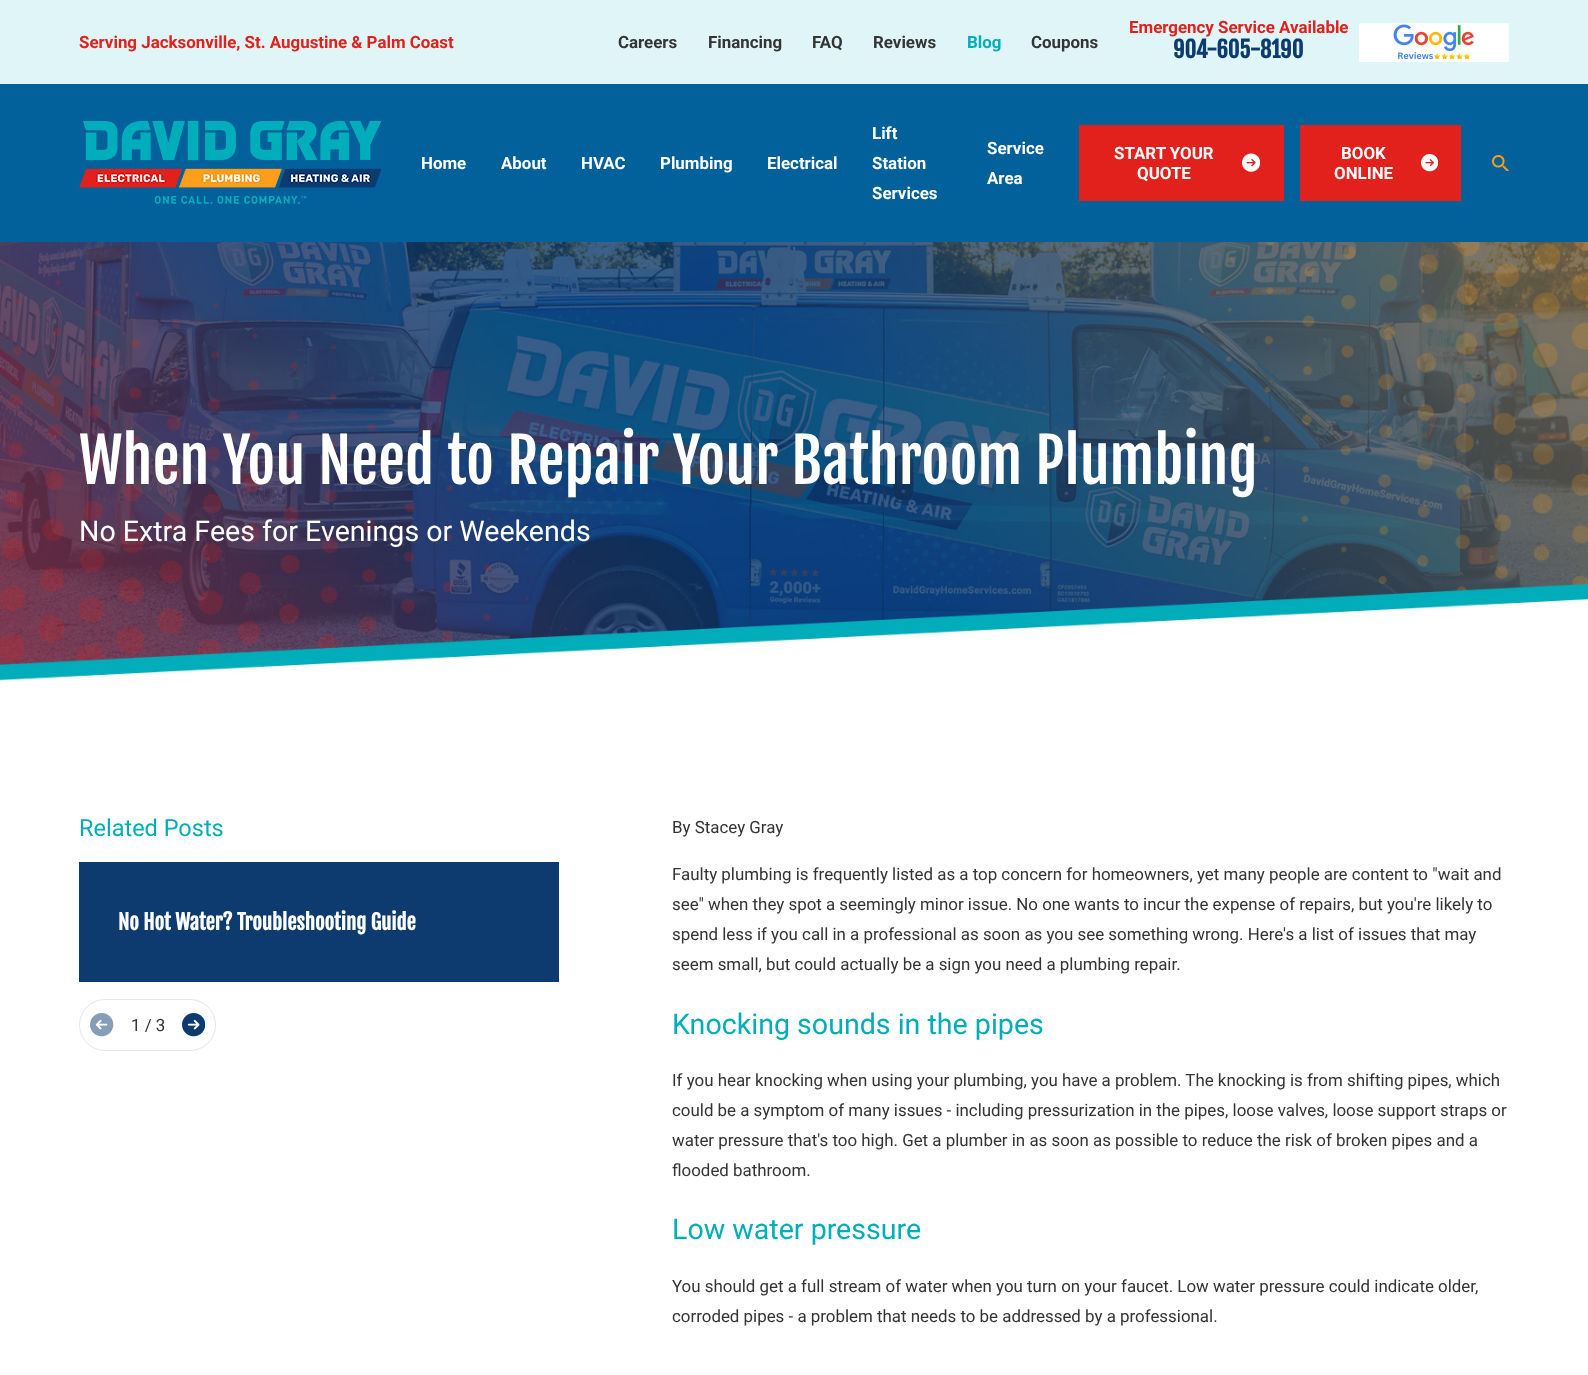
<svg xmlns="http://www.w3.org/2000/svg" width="1588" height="1375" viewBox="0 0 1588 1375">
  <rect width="100%" height="100%" fill="#ffffff"/>
  <rect x="0" y="84" width="1588" height="158" fill="#02609b"/>
  <rect x="0" y="0" width="1588" height="84" fill="#e0f5f7"/>
  <text x="79" y="48" font-family="Roboto" font-size="16.9" font-weight="bold" fill="#e2211c">Serving Jacksonville, St. Augustine &amp; Palm Coast</text>
  <text x="618" y="48" font-family="Roboto" font-size="16.9" font-weight="bold" fill="#343434">Careers</text>
  <text x="708" y="48" font-family="Roboto" font-size="16.9" font-weight="bold" fill="#343434">Financing</text>
  <text x="812" y="48" font-family="Roboto" font-size="16.9" font-weight="bold" fill="#343434">FAQ</text>
  <text x="873" y="48" font-family="Roboto" font-size="16.9" font-weight="bold" fill="#343434">Reviews</text>
  <text x="967" y="48" font-family="Roboto" font-size="16.9" font-weight="bold" fill="#00adba">Blog</text>
  <text x="1031" y="48" font-family="Roboto" font-size="16.9" font-weight="bold" fill="#343434">Coupons</text>
  <text x="1129" y="33" font-family="Roboto" font-size="16.9" font-weight="bold" fill="#e2211c">Emergency Service Available</text>
  <text x="1173" y="58" font-family="Fjalla One" font-size="22.5" font-weight="bold" fill="#0d3b70">904-605-8190</text>
  <image x="1359" y="23" width="150" height="39" href="img1.png"/>
  <image x="79" y="121" width="302" height="83" href="img2.png"/>
  <text x="421" y="169" font-family="Roboto" font-size="16.9" font-weight="bold" fill="#ffffff">Home</text>
  <text x="501" y="169" font-family="Roboto" font-size="16.9" font-weight="bold" fill="#ffffff">About</text>
  <text x="581" y="169" font-family="Roboto" font-size="16.9" font-weight="bold" fill="#ffffff">HVAC</text>
  <text x="660" y="169" font-family="Roboto" font-size="16.9" font-weight="bold" fill="#ffffff">Plumbing</text>
  <text x="767" y="169" font-family="Roboto" font-size="16.9" font-weight="bold" fill="#ffffff">Electrical</text>
  <text x="872" y="139" font-family="Roboto" font-size="16.9" font-weight="bold" fill="#ffffff">Lift</text>
  <text x="872" y="169" font-family="Roboto" font-size="16.9" font-weight="bold" fill="#ffffff">Station</text>
  <text x="872" y="199" font-family="Roboto" font-size="16.9" font-weight="bold" fill="#ffffff">Services</text>
  <text x="987" y="154" font-family="Roboto" font-size="16.9" font-weight="bold" fill="#ffffff">Service</text>
  <text x="987" y="184" font-family="Roboto" font-size="16.9" font-weight="bold" fill="#ffffff">Area</text>
  <rect x="1079" y="125" width="205" height="76" fill="#e2211c"/>
  <text x="1114" y="159" font-family="Roboto" font-size="16.9" font-weight="bold" fill="#ffffff">START YOUR</text>
  <image x="1242" y="153" width="18" height="19" href="img3.png"/>
  <text x="1137" y="179" font-family="Roboto" font-size="16.9" font-weight="bold" fill="#ffffff">QUOTE</text>
  <rect x="1300" y="125" width="161" height="76" fill="#e2211c"/>
  <text x="1341" y="159" font-family="Roboto" font-size="16.9" font-weight="bold" fill="#ffffff">BOOK</text>
  <image x="1421" y="154" width="17" height="18" href="img4.png"/>
  <text x="1334" y="179" font-family="Roboto" font-size="16.9" font-weight="bold" fill="#ffffff">ONLINE</text>
  <image x="1492" y="155" width="17" height="16" href="img5.png"/>
  <image x="0" y="242" width="1588" height="440" href="img6.png"/>
  <text x="79" y="484" font-family="Fjalla One" font-size="60.6" fill="#ffffff">When You Need to Repair Your Bathroom Plumbing</text>
  <text x="79" y="541" font-family="Roboto" font-size="28.6" fill="#ffffff">No Extra Fees for Evenings or Weekends</text>
  <text x="79" y="836" font-family="Roboto" font-size="23.5" fill="#00adba">Related Posts</text>
  <rect x="79" y="862" width="480" height="120" fill="#0d3b70"/>
  <text x="118" y="930" font-family="Fjalla One" font-size="20.75" font-weight="bold" fill="#ffffff">No Hot Water? Troubleshooting Guide</text>
  <rect x="79.5" y="999.5" width="136" height="51" rx="25.5" fill="none" stroke="#e6e6e6"/>
  <image x="90" y="1013" width="24" height="24" href="img7.png"/>
  <text x="131" y="1031" font-family="Roboto" font-size="16.9" fill="#343434">1 / 3</text>
  <image x="182" y="1013" width="23" height="24" href="img8.png"/>
  <text x="672" y="833" font-family="Roboto" font-size="16.9" fill="#343434">By Stacey Gray</text>
  <text x="672" y="880" font-family="Roboto" font-size="16.9" fill="#343434">Faulty plumbing is frequently listed as a top concern for homeowners, yet many people are content to "wait and</text>
  <text x="672" y="910" font-family="Roboto" font-size="16.9" fill="#343434">see" when they spot a seemingly minor issue. No one wants to incur the expense of repairs, but you're likely to</text>
  <text x="672" y="940" font-family="Roboto" font-size="16.9" fill="#343434">spend less if you call in a professional as soon as you see something wrong. Here's a list of issues that may</text>
  <text x="672" y="970" font-family="Roboto" font-size="16.9" fill="#343434">seem small, but could actually be a sign you need a plumbing repair.</text>
  <text x="672" y="1034" font-family="Roboto" font-size="28.6" fill="#00adba">Knocking sounds in the pipes</text>
  <text x="672" y="1086" font-family="Roboto" font-size="16.9" fill="#343434">If you hear knocking when using your plumbing, you have a problem. The knocking is from shifting pipes, which</text>
  <text x="672" y="1116" font-family="Roboto" font-size="16.9" fill="#343434">could be a symptom of many issues - including pressurization in the pipes, loose valves, loose support straps or</text>
  <text x="672" y="1146" font-family="Roboto" font-size="16.9" fill="#343434">water pressure that's too high. Get a plumber in as soon as possible to reduce the risk of broken pipes and a</text>
  <text x="672" y="1176" font-family="Roboto" font-size="16.9" fill="#343434">flooded bathroom.</text>
  <text x="672" y="1239" font-family="Roboto" font-size="28.6" fill="#00adba">Low water pressure</text>
  <text x="672" y="1292" font-family="Roboto" font-size="16.9" fill="#343434">You should get a full stream of water when you turn on your faucet. Low water pressure could indicate older,</text>
  <text x="672" y="1322" font-family="Roboto" font-size="16.9" fill="#343434">corroded pipes - a problem that needs to be addressed by a professional.</text>
</svg>
